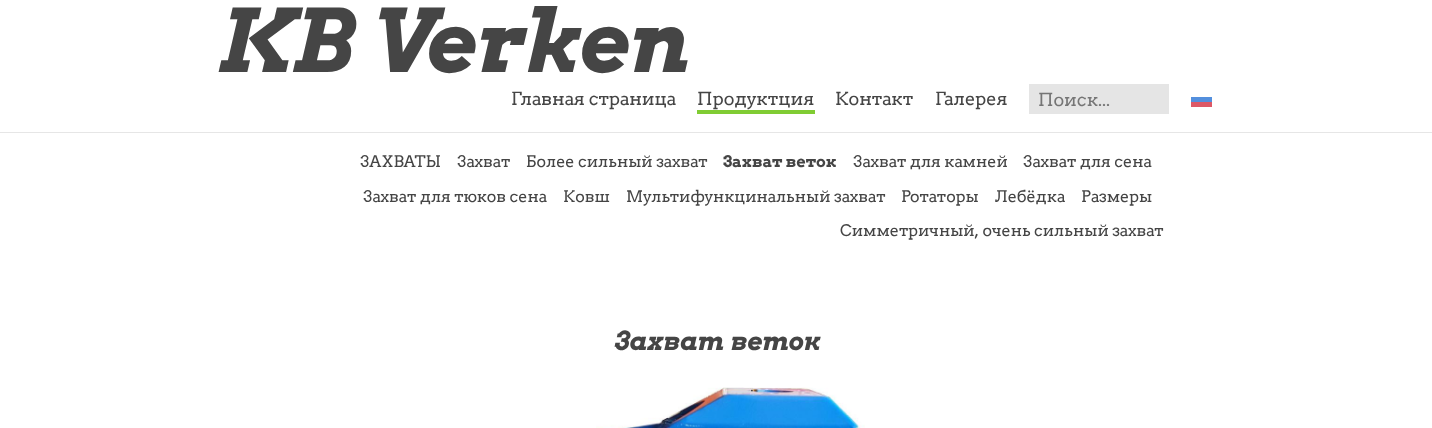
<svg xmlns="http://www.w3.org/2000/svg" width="1432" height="428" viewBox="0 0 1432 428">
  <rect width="100%" height="100%" fill="#ffffff"/>
  <rect x="0" y="132" width="1432" height="1" fill="#e6e6e6"/>
  <text x="216" y="72" font-family="Arvo" font-size="87" font-weight="bold" font-style="italic" fill="#454545">KB Verken</text>
  <text x="511" y="105" font-family="Arvo" font-size="18" fill="#454545">Главная страница</text>
  <text x="697" y="105" font-family="Arvo" font-size="18" fill="#454545">Продуктция</text>
  <rect x="697" y="110" width="118" height="4" fill="#80cc33"/>
  <text x="835" y="105" font-family="Arvo" font-size="18" fill="#454545">Контакт</text>
  <text x="935" y="105" font-family="Arvo" font-size="18" fill="#454545">Галерея</text>
  <rect x="1029" y="84" width="140" height="30" fill="#e5e5e5"/>
  <text x="1038" y="106" font-family="Arvo" font-size="18" fill="#757575">Поиск...</text>
  <image x="1191" y="92" width="21" height="15" href="img1.png"/>
  <text x="360" y="167" font-family="Arvo" font-size="16" fill="#454545">ЗАХВАТЫ</text>
  <text x="457" y="167" font-family="Arvo" font-size="16" fill="#454545">Захват</text>
  <text x="526" y="167" font-family="Arvo" font-size="16" fill="#454545">Более сильный захват</text>
  <text x="723" y="167" font-family="Arvo" font-size="16" font-weight="bold" fill="#454545">Захват веток</text>
  <text x="853" y="167" font-family="Arvo" font-size="16" fill="#454545">Захват для камней</text>
  <text x="1023" y="167" font-family="Arvo" font-size="16" fill="#454545">Захват для сена</text>
  <text x="363" y="202" font-family="Arvo" font-size="16" fill="#454545">Захват для тюков сена</text>
  <text x="563" y="202" font-family="Arvo" font-size="16" fill="#454545">Kовш</text>
  <text x="626" y="202" font-family="Arvo" font-size="16" fill="#454545">Мультифункцинальный захват</text>
  <text x="901" y="202" font-family="Arvo" font-size="16" fill="#454545">Ротаторы</text>
  <text x="995" y="202" font-family="Arvo" font-size="16" fill="#454545">Лебёдка</text>
  <text x="1081" y="202" font-family="Arvo" font-size="16" fill="#454545">Pазмеры</text>
  <text x="840" y="236" font-family="Arvo" font-size="16" fill="#454545">Cимметричный, очень сильный захват</text>
  <text x="613" y="350" font-family="Arvo" font-size="26" font-weight="bold" font-style="italic" fill="#454545">Захват веток</text>
  <image x="596" y="387" width="269" height="41" href="img2.png"/>
</svg>
